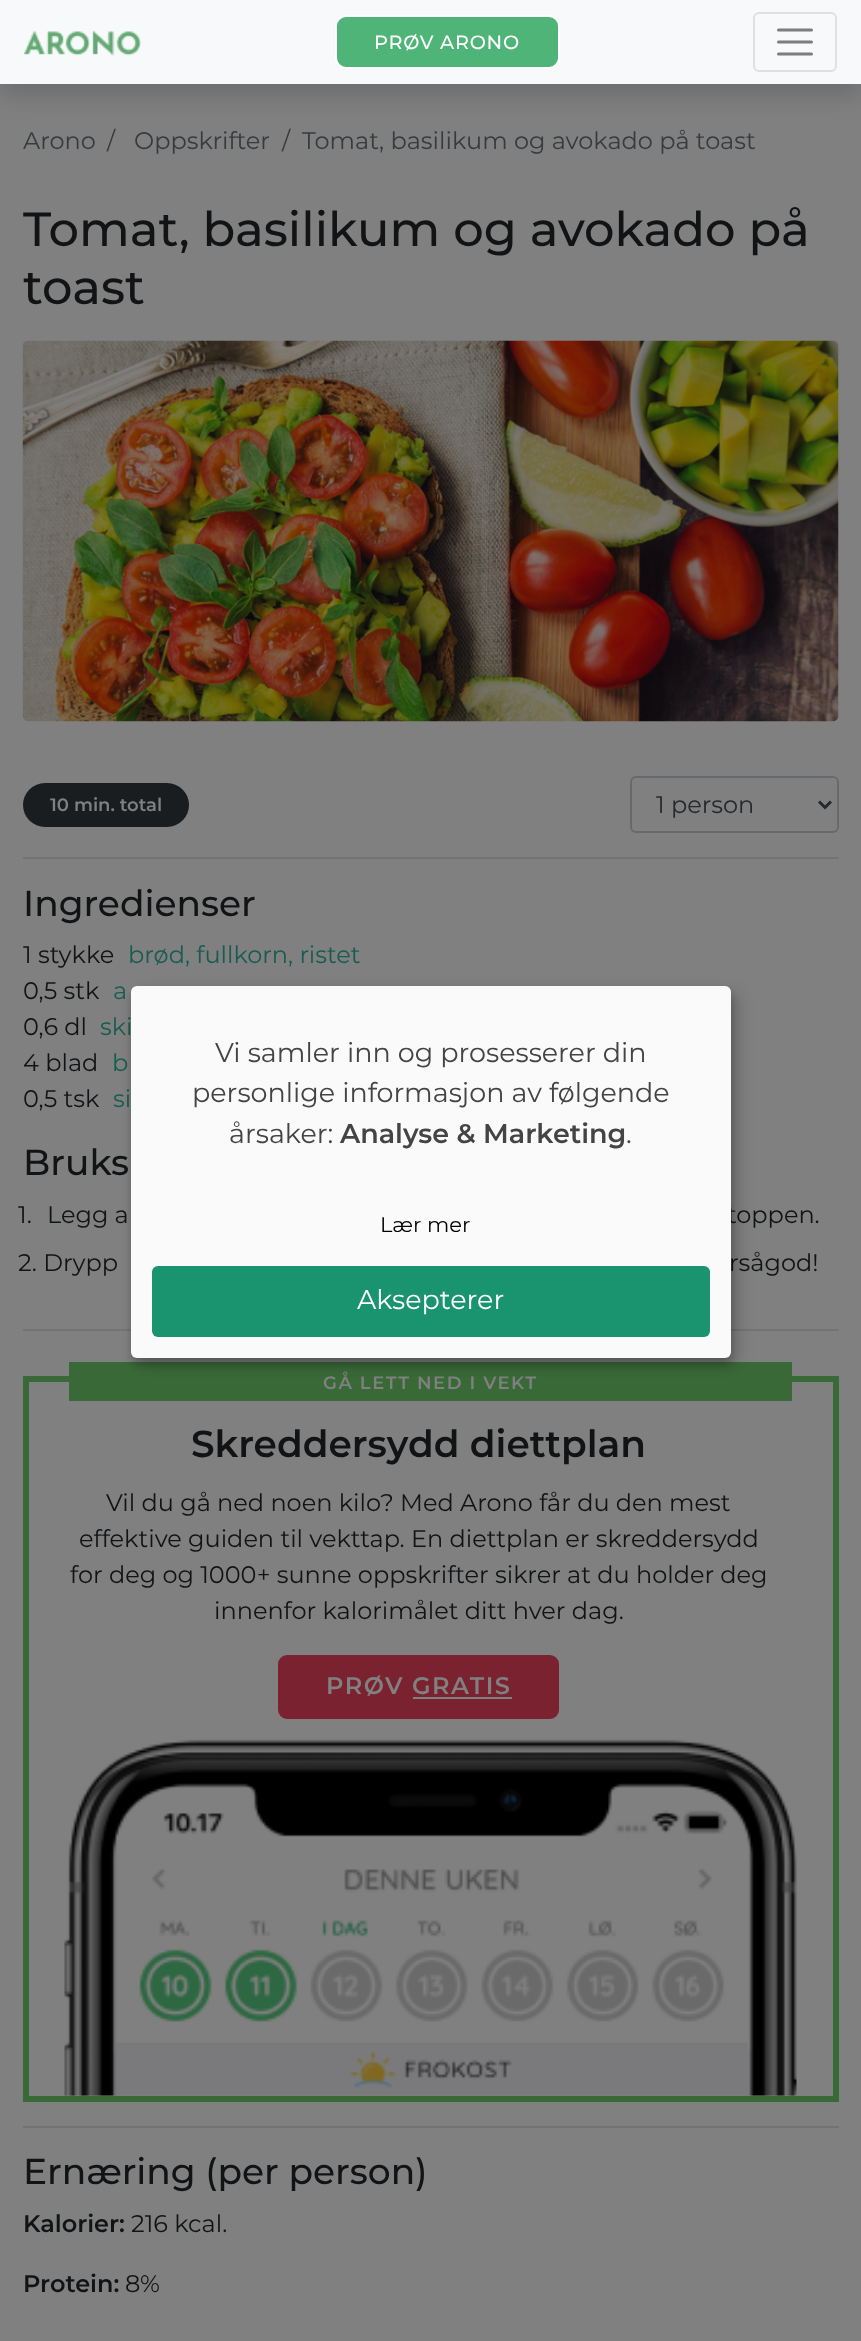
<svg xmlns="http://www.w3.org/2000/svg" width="861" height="2341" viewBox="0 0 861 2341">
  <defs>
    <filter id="blur1" x="-50%" y="-200%" width="200%" height="500%"><feGaussianBlur stdDeviation="12"/></filter>
    <filter id="blur2" x="-50%" y="-200%" width="200%" height="500%"><feGaussianBlur stdDeviation="7.5"/></filter>
    <filter id="blur3" x="-50%" y="-200%" width="200%" height="500%"><feGaussianBlur stdDeviation="4.5"/></filter>
  </defs>
  <rect width="100%" height="100%" fill="#808080"/>
  <rect x="0" y="12" width="861" height="84" fill="#000000" fill-opacity="0.15" filter="url(#blur1)"/>
  <rect x="0" y="0" width="861" height="84" fill="#f8f9fa"/>
  <image x="24" y="30" width="117" height="26" href="img1.png"/>
  <rect x="336" y="16" width="223" height="52" rx="10" fill="#4fb477" stroke="#ffffff" stroke-width="2"/>
  <text x="374" y="49" font-family="Montserrat" font-size="19.25" font-weight="500" letter-spacing="0.75" fill="#ffffff">PRØV ARONO</text>
  <rect x="754" y="13" width="82" height="58" rx="5" fill="none" stroke="#dfe0e1" stroke-width="2"/>
  <path d="M778.5 30H811.5M778.5 42H811.5M778.5 54H811.5" fill="none" stroke="#7c7d7d" stroke-width="3" stroke-linecap="round"/>
  <text x="23" y="149" font-family="Montserrat" font-size="24" fill="#363b3f">Arono</text>
  <text x="107" y="149" font-family="Montserrat" font-size="24" fill="#363b3f">/</text>
  <text x="134" y="149" font-family="Montserrat" font-size="24" fill="#363b3f">Oppskrifter</text>
  <text x="282" y="149" font-family="Montserrat" font-size="24" fill="#363b3f">/</text>
  <text x="302" y="149" font-family="Montserrat" font-size="24" fill="#363b3f">Tomat, basilikum og avokado på toast</text>
  <text x="23" y="246" font-family="Montserrat" font-size="48" font-weight="500" fill="#111315">Tomat, basilikum og avokado på</text>
  <text x="23" y="304" font-family="Montserrat" font-size="48" font-weight="500" fill="#111315">toast</text>
  <image x="22" y="340" width="817" height="382" href="img2.png"/>
  <rect x="23" y="783" width="166" height="44" rx="22" fill="#1a1d20"/>
  <text x="50" y="811" font-family="Montserrat" font-size="18" font-weight="600" fill="#808080">10 min. total</text>
  <rect x="631" y="777" width="207" height="55" rx="5" fill="none" stroke="#676a6d" stroke-width="2"/>
  <path d="M819 801.5L825 807.5L831 801.5" fill="none" stroke="#25282c" stroke-width="3"/>
  <text x="656" y="813" font-family="Montserrat" font-size="24" fill="#25282c">1 person</text>
  <rect x="23" y="857" width="816" height="2" fill="#737373"/>
  <text x="23" y="916" font-family="Montserrat" font-size="36" font-weight="500" fill="#111315">Ingredienser</text>
  <text x="23" y="963" font-family="Montserrat" font-size="24" fill="#111315">1 stykke</text>
  <text x="128" y="963" font-family="Montserrat" font-size="24" fill="#175c4e">brød, fullkorn, ristet</text>
  <text x="23" y="999" font-family="Montserrat" font-size="24" fill="#111315">0,5 stk</text>
  <text x="113" y="999" font-family="Montserrat" font-size="24" fill="#175c4e">a</text>
  <text x="23" y="1035" font-family="Montserrat" font-size="24" fill="#111315">0,6 dl</text>
  <text x="100" y="1035" font-family="Montserrat" font-size="24" fill="#175c4e">ski</text>
  <text x="23" y="1071" font-family="Montserrat" font-size="24" fill="#111315">4 blad</text>
  <text x="112" y="1071" font-family="Montserrat" font-size="24" fill="#175c4e">b</text>
  <text x="23" y="1107" font-family="Montserrat" font-size="24" fill="#111315">0,5 tsk</text>
  <text x="113" y="1107" font-family="Montserrat" font-size="24" fill="#175c4e">si</text>
  <text x="23" y="1175" font-family="Montserrat" font-size="36" font-weight="500" fill="#111315">Bruks</text>
  <text x="18" y="1223" font-family="Montserrat" font-size="24" fill="#111315">1.</text>
  <text x="47" y="1223" font-family="Montserrat" font-size="24" fill="#111315">Legg a</text>
  <text x="727" y="1223" font-family="Montserrat" font-size="24" fill="#111315">toppen.</text>
  <text x="18" y="1271" font-family="Montserrat" font-size="24" fill="#111315">2. Drypp</text>
  <text x="729" y="1271" font-family="Montserrat" font-size="24" fill="#111315">rsågod!</text>
  <rect x="23" y="1329" width="816" height="2" fill="#737373"/>
  <rect x="26" y="1379" width="810" height="720" fill="none" stroke="#396937" stroke-width="6"/>
  <rect x="69" y="1362" width="723" height="39" fill="#396937"/>
  <text x="323" y="1389" font-family="Montserrat" font-size="18" font-weight="600" letter-spacing="1.5" fill="#808080">GÅ LETT NED I VEKT</text>
  <text x="191" y="1457" font-family="Montserrat" font-size="37.5" font-weight="600" fill="#111315">Skreddersydd diettplan</text>
  <text x="106" y="1511" font-family="Montserrat" font-size="24" fill="#111315">Vil du gå ned noen kilo? Med Arono får du den mest</text>
  <text x="79" y="1547" font-family="Montserrat" font-size="24" fill="#111315">effektive guiden til vekttap. En diettplan er skreddersydd</text>
  <text x="70" y="1583" font-family="Montserrat" font-size="24" fill="#111315">for deg og 1000+ sunne oppskrifter sikrer at du holder deg</text>
  <text x="214" y="1619" font-family="Montserrat" font-size="24" fill="#111315">innenfor kalorimålet ditt hver dag.</text>
  <rect x="277" y="1654" width="283" height="66" rx="10" fill="#7b2230" stroke="#808080" stroke-width="2"/>
  <text x="326" y="1694" font-family="Montserrat" font-size="24" font-weight="600" letter-spacing="1.5" fill="#808080">PRØV GRATIS</text>
  <rect x="413" y="1697" width="99" height="2" fill="#808080"/>
  <image x="64" y="1739" width="733" height="357" href="img3.png"/>
  <rect x="23" y="2126" width="816" height="2" fill="#737373"/>
  <text x="23" y="2184" font-family="Montserrat" font-size="36" font-weight="500" fill="#111315">Ernæring (per person)</text>
  <text x="23" y="2232" font-family="Montserrat" font-size="24" font-weight="600" fill="#111315">Kalorier:</text>
  <text x="131" y="2232" font-family="Montserrat" font-size="24" fill="#111315">216 kcal.</text>
  <text x="23" y="2292" font-family="Montserrat" font-size="24" font-weight="600" fill="#111315">Protein:</text>
  <text x="125" y="2292" font-family="Montserrat" font-size="24" fill="#111315">8%</text>
  <rect x="138" y="993" width="600" height="372" rx="6" fill="#000000" fill-opacity="0.19" filter="url(#blur2)"/>
  <rect x="131" y="992" width="600" height="372" rx="6" fill="#000000" fill-opacity="0.2" filter="url(#blur3)"/>
  <rect x="131" y="986" width="600" height="372" rx="6" fill="#fafafa"/>
  <text x="215" y="1062" font-family="Montserrat" font-size="27" fill="#444444">Vi samler inn og prosesserer din</text>
  <text x="192" y="1102" font-family="Montserrat" font-size="27" fill="#444444">personlige informasjon av følgende</text>
  <text x="229" y="1143" font-family="Montserrat" font-size="27" fill="#444444">årsaker:</text>
  <text x="340" y="1143" font-family="Montserrat" font-size="27" font-weight="600" fill="#444444">Analyse &amp; Marketing</text>
  <text x="626" y="1143" font-family="Montserrat" font-size="27" fill="#444444">.</text>
  <text x="380" y="1232" font-family="Montserrat" font-size="21" fill="#000000">Lær mer</text>
  <rect x="152" y="1266" width="558" height="71" rx="6" fill="#1a936f"/>
  <text x="357" y="1309" font-family="Montserrat" font-size="27" fill="#ffffff">Aksepterer</text>
</svg>
